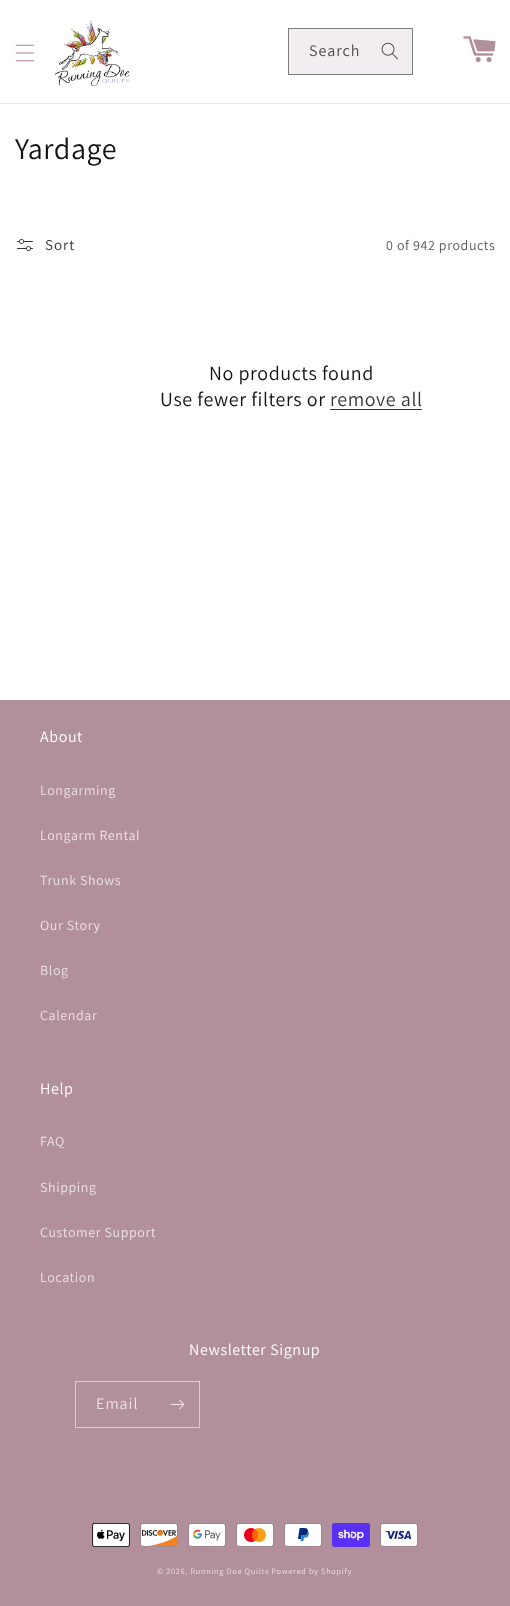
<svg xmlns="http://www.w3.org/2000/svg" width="510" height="1606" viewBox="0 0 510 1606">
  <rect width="100%" height="100%" fill="#ffffff"/>
  <rect x="0" y="103" width="510" height="1" fill="#ececec"/>
  <image x="15" y="44" width="19" height="18" href="img1.png"/>
  <image x="55" y="20" width="75" height="66" href="img2.png"/>
  <rect x="289" y="29" width="123" height="45" fill="#f1edf0"/>
  <image x="381" y="42" width="17" height="18" href="img3.png"/>
  <rect x="288.5" y="28.5" width="124" height="46" fill="none" stroke="#7d7d7d"/>
  <text x="309" y="56" font-family="Assistant" font-size="16" letter-spacing="1" fill="#4a494a">Search</text>
  <image x="463" y="36" width="33" height="27" href="img4.png"/>
  <text x="15" y="159" font-family="Assistant" font-size="30" letter-spacing="0.6" fill="#121212">Yardage</text>
  <image x="17" y="239" width="16" height="12" href="img5.png"/>
  <text x="45" y="250" font-family="Assistant" font-size="15" letter-spacing="1" fill="#363636">Sort</text>
  <text x="386" y="250" font-family="Assistant" font-size="14" letter-spacing="0.6" fill="#595959">0 of 942 products</text>
  <text x="209" y="380" font-family="Assistant" font-size="20" letter-spacing="0.6" fill="#121212">No products found</text>
  <text x="160" y="406" font-family="Assistant" font-size="20" letter-spacing="0.6" fill="#121212">Use fewer filters or</text>
  <text x="330" y="406" font-family="Assistant" font-size="20" letter-spacing="0.6" fill="#363636">remove all</text>
  <rect x="330" y="409" width="92" height="1" fill="#363636"/>
  <rect x="0" y="700" width="510" height="906" fill="#b18f9b"/>
  <text x="40" y="742" font-family="Assistant" font-size="16" letter-spacing="0.6" fill="#ffffff">About</text>
  <text x="40" y="795" font-family="Assistant" font-size="14" letter-spacing="0.6" fill="#ece3e6">Longarming</text>
  <text x="40" y="840" font-family="Assistant" font-size="14" letter-spacing="0.6" fill="#ece3e6">Longarm Rental</text>
  <text x="40" y="885" font-family="Assistant" font-size="14" letter-spacing="0.6" fill="#ece3e6">Trunk Shows</text>
  <text x="40" y="930" font-family="Assistant" font-size="14" letter-spacing="0.6" fill="#ece3e6">Our Story</text>
  <text x="40" y="975" font-family="Assistant" font-size="14" letter-spacing="0.6" fill="#ece3e6">Blog</text>
  <text x="40" y="1020" font-family="Assistant" font-size="14" letter-spacing="0.6" fill="#ece3e6">Calendar</text>
  <text x="40" y="1094" font-family="Assistant" font-size="16" letter-spacing="0.6" fill="#ffffff">Help</text>
  <text x="40" y="1146" font-family="Assistant" font-size="14" letter-spacing="0.6" fill="#ece3e6">FAQ</text>
  <text x="40" y="1192" font-family="Assistant" font-size="14" letter-spacing="0.6" fill="#ece3e6">Shipping</text>
  <text x="40" y="1237" font-family="Assistant" font-size="14" letter-spacing="0.6" fill="#ece3e6">Customer Support</text>
  <text x="40" y="1282" font-family="Assistant" font-size="14" letter-spacing="0.6" fill="#ece3e6">Location</text>
  <text x="189" y="1355" font-family="Assistant" font-size="16" letter-spacing="0.6" fill="#ffffff">Newsletter Signup</text>
  <rect x="75.5" y="1381.5" width="124" height="46" fill="none" stroke="#dccdd2"/>
  <text x="96" y="1409" font-family="Assistant" font-size="16" letter-spacing="1" fill="#ece3e6">Email</text>
  <image x="170" y="1399" width="15" height="11" href="img6.png"/>
  <image x="92" y="1523" width="38" height="24" href="img7.png"/>
  <image x="140" y="1523" width="38" height="24" href="img8.png"/>
  <image x="188" y="1523" width="38" height="24" href="img9.png"/>
  <image x="236" y="1523" width="38" height="24" href="img10.png"/>
  <image x="284" y="1523" width="38" height="24" href="img11.png"/>
  <image x="332" y="1523" width="38" height="24" href="img12.png"/>
  <image x="380" y="1523" width="38" height="24" href="img13.png"/>
  <text x="157" y="1574" font-family="Assistant" font-size="8.3" letter-spacing="0.7" fill="#ece3e6">© 2026, Running Doe Quilts Powered by Shopify</text>
</svg>
